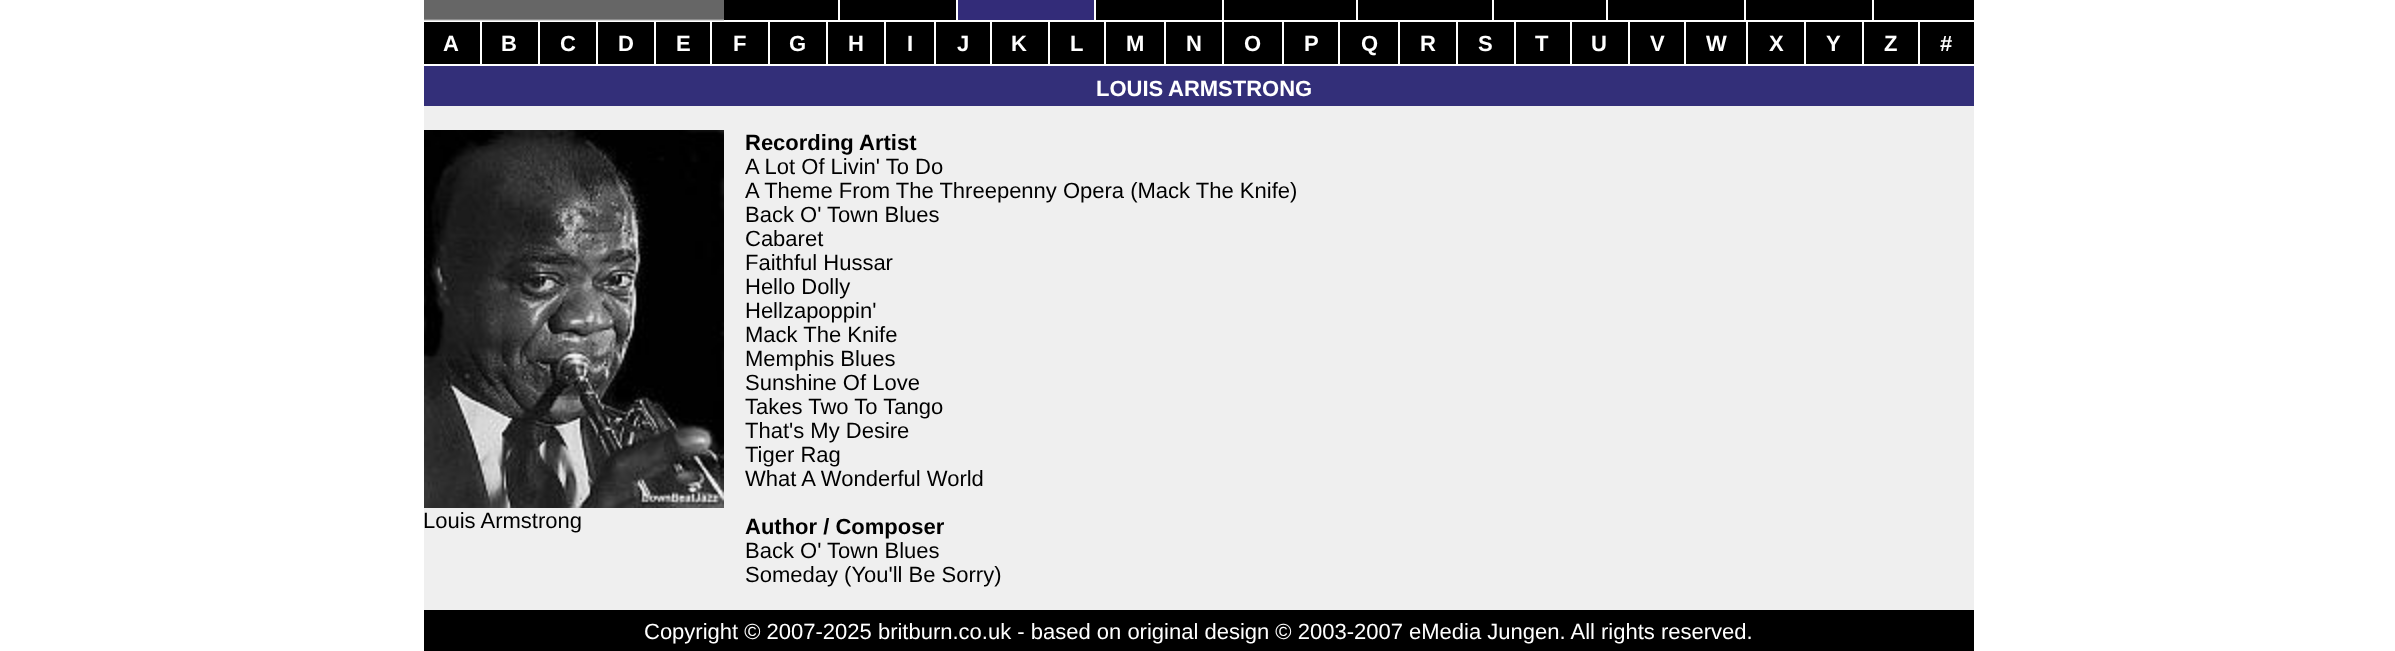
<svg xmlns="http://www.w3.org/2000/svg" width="2395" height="651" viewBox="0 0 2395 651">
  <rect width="100%" height="100%" fill="#ffffff"/>
  <image x="424" y="0" width="300" height="21" href="img1.png"/>
  <rect x="724" y="0" width="114" height="20" fill="#000000"/>
  <rect x="840" y="0" width="116" height="20" fill="#000000"/>
  <rect x="958" y="0" width="136" height="20" fill="#332c79"/>
  <rect x="1096" y="0" width="126" height="20" fill="#000000"/>
  <rect x="1224" y="0" width="132" height="20" fill="#000000"/>
  <rect x="1358" y="0" width="134" height="20" fill="#000000"/>
  <rect x="1494" y="0" width="112" height="20" fill="#000000"/>
  <rect x="1608" y="0" width="136" height="20" fill="#000000"/>
  <rect x="1746" y="0" width="126" height="20" fill="#000000"/>
  <rect x="1874" y="0" width="100" height="20" fill="#000000"/>
  <rect x="424" y="22" width="56" height="42" fill="#000000"/>
  <text x="443" y="51" font-family="Liberation Sans" font-size="22" font-weight="bold" fill="#ffffff">A</text>
  <rect x="482" y="22" width="56" height="42" fill="#000000"/>
  <text x="501" y="51" font-family="Liberation Sans" font-size="22" font-weight="bold" fill="#ffffff">B</text>
  <rect x="540" y="22" width="56" height="42" fill="#000000"/>
  <text x="560" y="51" font-family="Liberation Sans" font-size="22" font-weight="bold" fill="#ffffff">C</text>
  <rect x="598" y="22" width="56" height="42" fill="#000000"/>
  <text x="618" y="51" font-family="Liberation Sans" font-size="22" font-weight="bold" fill="#ffffff">D</text>
  <rect x="656" y="22" width="54" height="42" fill="#000000"/>
  <text x="676" y="51" font-family="Liberation Sans" font-size="22" font-weight="bold" fill="#ffffff">E</text>
  <rect x="712" y="22" width="56" height="42" fill="#000000"/>
  <text x="733" y="51" font-family="Liberation Sans" font-size="22" font-weight="bold" fill="#ffffff">F</text>
  <rect x="770" y="22" width="56" height="42" fill="#000000"/>
  <text x="789" y="51" font-family="Liberation Sans" font-size="22" font-weight="bold" fill="#ffffff">G</text>
  <rect x="828" y="22" width="56" height="42" fill="#000000"/>
  <text x="848" y="51" font-family="Liberation Sans" font-size="22" font-weight="bold" fill="#ffffff">H</text>
  <rect x="886" y="22" width="48" height="42" fill="#000000"/>
  <text x="907" y="51" font-family="Liberation Sans" font-size="22" font-weight="bold" fill="#ffffff">I</text>
  <rect x="936" y="22" width="54" height="42" fill="#000000"/>
  <text x="957" y="51" font-family="Liberation Sans" font-size="22" font-weight="bold" fill="#ffffff">J</text>
  <rect x="992" y="22" width="56" height="42" fill="#000000"/>
  <text x="1011" y="51" font-family="Liberation Sans" font-size="22" font-weight="bold" fill="#ffffff">K</text>
  <rect x="1050" y="22" width="54" height="42" fill="#000000"/>
  <text x="1070" y="51" font-family="Liberation Sans" font-size="22" font-weight="bold" fill="#ffffff">L</text>
  <rect x="1106" y="22" width="58" height="42" fill="#000000"/>
  <text x="1126" y="51" font-family="Liberation Sans" font-size="22" font-weight="bold" fill="#ffffff">M</text>
  <rect x="1166" y="22" width="56" height="42" fill="#000000"/>
  <text x="1186" y="51" font-family="Liberation Sans" font-size="22" font-weight="bold" fill="#ffffff">N</text>
  <rect x="1224" y="22" width="58" height="42" fill="#000000"/>
  <text x="1244" y="51" font-family="Liberation Sans" font-size="22" font-weight="bold" fill="#ffffff">O</text>
  <rect x="1284" y="22" width="54" height="42" fill="#000000"/>
  <text x="1304" y="51" font-family="Liberation Sans" font-size="22" font-weight="bold" fill="#ffffff">P</text>
  <rect x="1340" y="22" width="58" height="42" fill="#000000"/>
  <text x="1361" y="51" font-family="Liberation Sans" font-size="22" font-weight="bold" fill="#ffffff">Q</text>
  <rect x="1400" y="22" width="56" height="42" fill="#000000"/>
  <text x="1420" y="51" font-family="Liberation Sans" font-size="22" font-weight="bold" fill="#ffffff">R</text>
  <rect x="1458" y="22" width="56" height="42" fill="#000000"/>
  <text x="1478" y="51" font-family="Liberation Sans" font-size="22" font-weight="bold" fill="#ffffff">S</text>
  <rect x="1516" y="22" width="54" height="42" fill="#000000"/>
  <text x="1535" y="51" font-family="Liberation Sans" font-size="22" font-weight="bold" fill="#ffffff">T</text>
  <rect x="1572" y="22" width="56" height="42" fill="#000000"/>
  <text x="1591" y="51" font-family="Liberation Sans" font-size="22" font-weight="bold" fill="#ffffff">U</text>
  <rect x="1630" y="22" width="54" height="42" fill="#000000"/>
  <text x="1650" y="51" font-family="Liberation Sans" font-size="22" font-weight="bold" fill="#ffffff">V</text>
  <rect x="1686" y="22" width="60" height="42" fill="#000000"/>
  <text x="1706" y="51" font-family="Liberation Sans" font-size="22" font-weight="bold" fill="#ffffff">W</text>
  <rect x="1748" y="22" width="56" height="42" fill="#000000"/>
  <text x="1769" y="51" font-family="Liberation Sans" font-size="22" font-weight="bold" fill="#ffffff">X</text>
  <rect x="1806" y="22" width="56" height="42" fill="#000000"/>
  <text x="1826" y="51" font-family="Liberation Sans" font-size="22" font-weight="bold" fill="#ffffff">Y</text>
  <rect x="1864" y="22" width="54" height="42" fill="#000000"/>
  <text x="1884" y="51" font-family="Liberation Sans" font-size="22" font-weight="bold" fill="#ffffff">Z</text>
  <rect x="1920" y="22" width="54" height="42" fill="#000000"/>
  <text x="1940" y="51" font-family="Liberation Sans" font-size="22" font-weight="bold" fill="#ffffff">#</text>
  <rect x="424" y="66" width="1550" height="40" fill="#332f79"/>
  <text x="1096" y="96" font-family="Liberation Sans" font-size="22" font-weight="bold" fill="#ffffff">LOUIS</text>
  <text x="1168" y="96" font-family="Liberation Sans" font-size="22" font-weight="bold" fill="#ffffff">ARMSTRONG</text>
  <rect x="424" y="106" width="1550" height="480" fill="#efefef"/>
  <image x="424" y="130" width="300" height="378" href="img2.png"/>
  <text x="423" y="528" font-family="Liberation Sans" font-size="22" fill="#000000">Louis Armstrong</text>
  <text x="745" y="150" font-family="Liberation Sans" font-size="22" font-weight="bold" fill="#000000">Recording Artist</text>
  <text x="745" y="174" font-family="Liberation Sans" font-size="22" fill="#000000">A Lot Of Livin' To Do</text>
  <text x="745" y="198" font-family="Liberation Sans" font-size="22" fill="#000000">A Theme From The Threepenny Opera (Mack The Knife)</text>
  <text x="745" y="222" font-family="Liberation Sans" font-size="22" fill="#000000">Back O' Town Blues</text>
  <text x="745" y="246" font-family="Liberation Sans" font-size="22" fill="#000000">Cabaret</text>
  <text x="745" y="270" font-family="Liberation Sans" font-size="22" fill="#000000">Faithful Hussar</text>
  <text x="745" y="294" font-family="Liberation Sans" font-size="22" fill="#000000">Hello Dolly</text>
  <text x="745" y="318" font-family="Liberation Sans" font-size="22" fill="#000000">Hellzapoppin'</text>
  <text x="745" y="342" font-family="Liberation Sans" font-size="22" fill="#000000">Mack The Knife</text>
  <text x="745" y="366" font-family="Liberation Sans" font-size="22" fill="#000000">Memphis Blues</text>
  <text x="745" y="390" font-family="Liberation Sans" font-size="22" fill="#000000">Sunshine Of Love</text>
  <text x="745" y="414" font-family="Liberation Sans" font-size="22" fill="#000000">Takes Two To Tango</text>
  <text x="745" y="438" font-family="Liberation Sans" font-size="22" fill="#000000">That's My Desire</text>
  <text x="745" y="462" font-family="Liberation Sans" font-size="22" fill="#000000">Tiger Rag</text>
  <text x="745" y="486" font-family="Liberation Sans" font-size="22" fill="#000000">What A Wonderful World</text>
  <text x="745" y="534" font-family="Liberation Sans" font-size="22" font-weight="bold" fill="#000000">Author / Composer</text>
  <text x="745" y="558" font-family="Liberation Sans" font-size="22" fill="#000000">Back O' Town Blues</text>
  <rect x="424" y="586" width="1550" height="24" fill="#efefef"/>
  <text x="745" y="582" font-family="Liberation Sans" font-size="22" fill="#000000">Someday (You'll Be Sorry)</text>
  <rect x="424" y="610" width="1550" height="41" fill="#000000"/>
  <text x="644" y="639" font-family="Liberation Sans" font-size="22" fill="#ffffff">Copyright © 2007-2025 britburn.co.uk - based on original design © 2003-2007 eMedia Jungen. All rights reserved.</text>
</svg>
